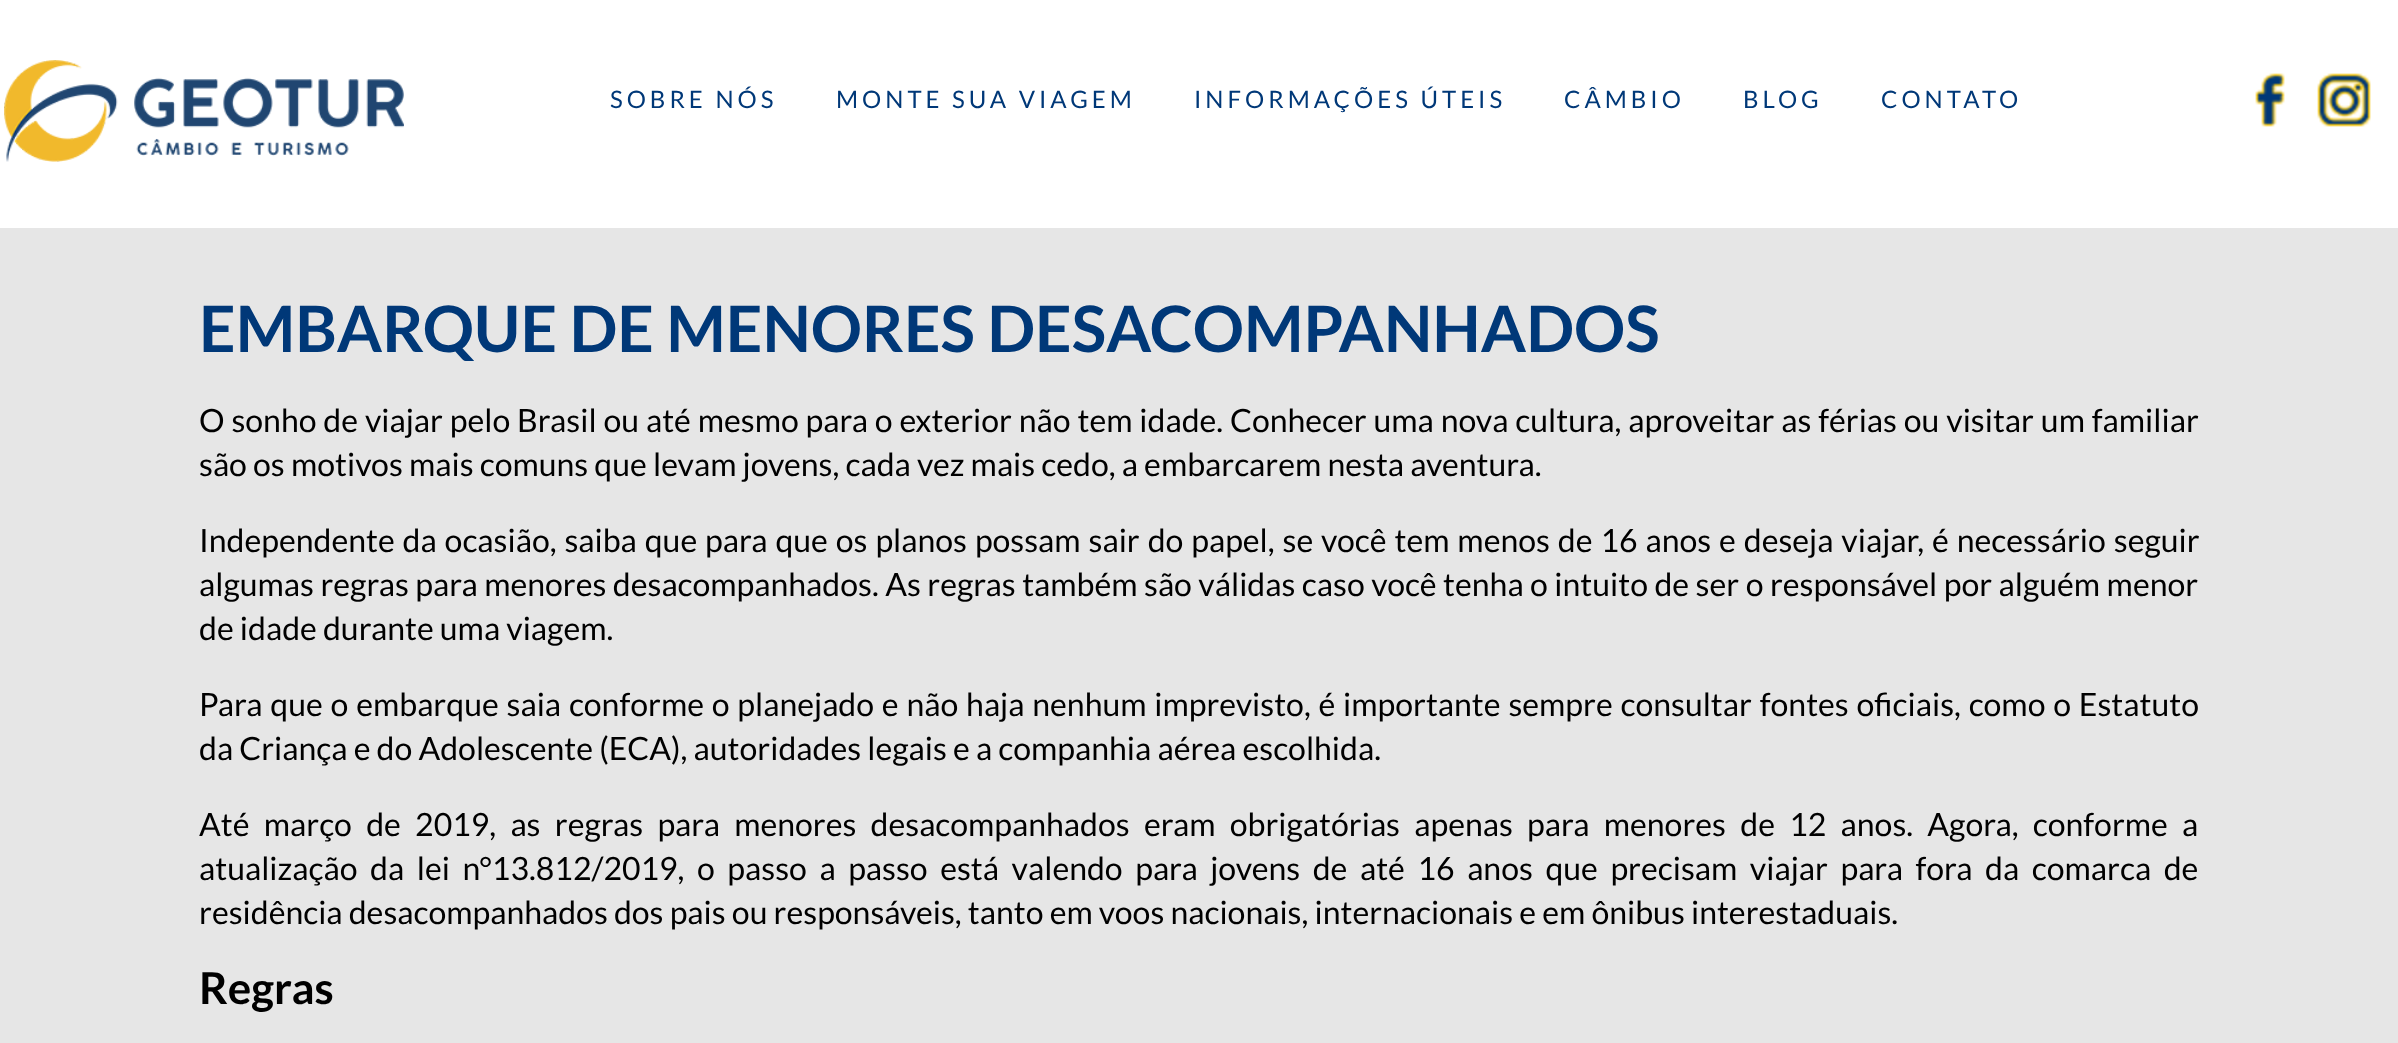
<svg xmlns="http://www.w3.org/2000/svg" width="2398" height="1043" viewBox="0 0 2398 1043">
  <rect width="100%" height="100%" fill="#e6e6e6"/>
  <rect x="0" y="0" width="2398" height="228" fill="#ffffff"/>
  <image x="4" y="60" width="400" height="102" href="img1.png"/>
  <text x="610" y="108" font-family="Lato" font-size="24" letter-spacing="4" fill="#003878">SOBRE NÓS</text>
  <text x="836" y="108" font-family="Lato" font-size="24" letter-spacing="4" fill="#003878">MONTE SUA VIAGEM</text>
  <text x="1194" y="108" font-family="Lato" font-size="24" letter-spacing="4" fill="#003878">INFORMAÇÕES ÚTEIS</text>
  <text x="1564" y="108" font-family="Lato" font-size="24" letter-spacing="4" fill="#003878">CÂMBIO</text>
  <text x="1743" y="108" font-family="Lato" font-size="24" letter-spacing="4" fill="#003878">BLOG</text>
  <text x="1881" y="108" font-family="Lato" font-size="24" letter-spacing="4" fill="#003878">CONTATO</text>
  <image x="2255" y="73" width="30" height="54" href="img2.png"/>
  <image x="2317" y="73" width="54" height="54" href="img3.png"/>
  <text x="199" y="352" font-family="Lato" font-size="64" font-weight="bold" fill="#003878">EMBARQUE DE MENORES DESACOMPANHADOS</text>
  <text x="199" y="432" word-spacing="0.7" font-family="Lato" font-size="32" fill="#000000">O sonho de viajar pelo Brasil ou até mesmo para o exterior não tem idade. Conhecer uma nova cultura, aproveitar as férias ou visitar um familiar</text>
  <text x="199" y="476" font-family="Lato" font-size="32" fill="#000000">são os motivos mais comuns que levam jovens, cada vez mais cedo, a embarcarem nesta aventura.</text>
  <text x="199" y="552" word-spacing="1.75" font-family="Lato" font-size="32" fill="#000000">Independente da ocasião, saiba que para que os planos possam sair do papel, se você tem menos de 16 anos e deseja viajar, é necessário seguir</text>
  <text x="199" y="596" word-spacing="0.3" font-family="Lato" font-size="32" fill="#000000">algumas regras para menores desacompanhados. As regras também são válidas caso você tenha o intuito de ser o responsável por alguém menor</text>
  <text x="199" y="640" font-family="Lato" font-size="32" fill="#000000">de idade durante uma viagem.</text>
  <text x="199" y="716" word-spacing="1.65" font-family="Lato" font-size="32" fill="#000000">Para que o embarque saia conforme o planejado e não haja nenhum imprevisto, é importante sempre consultar fontes oficiais, como o Estatuto</text>
  <text x="199" y="760" font-family="Lato" font-size="32" fill="#000000">da Criança e do Adolescente (ECA), autoridades legais e a companhia aérea escolhida.</text>
  <text x="199" y="836" word-spacing="8.1" font-family="Lato" font-size="32" fill="#000000">Até março de 2019, as regras para menores desacompanhados eram obrigatórias apenas para menores de 12 anos. Agora, conforme a</text>
  <text x="199" y="880" word-spacing="6.4" font-family="Lato" font-size="32" fill="#000000">atualização da lei n°13.812/2019, o passo a passo está valendo para jovens de até 16 anos que precisam viajar para fora da comarca de</text>
  <text x="199" y="924" font-family="Lato" font-size="32" fill="#000000">residência desacompanhados dos pais ou responsáveis, tanto em voos nacionais, internacionais e em ônibus interestaduais.</text>
  <text x="199" y="1004" font-family="Lato" font-size="44" font-weight="bold" fill="#000000">Regras</text>
</svg>
